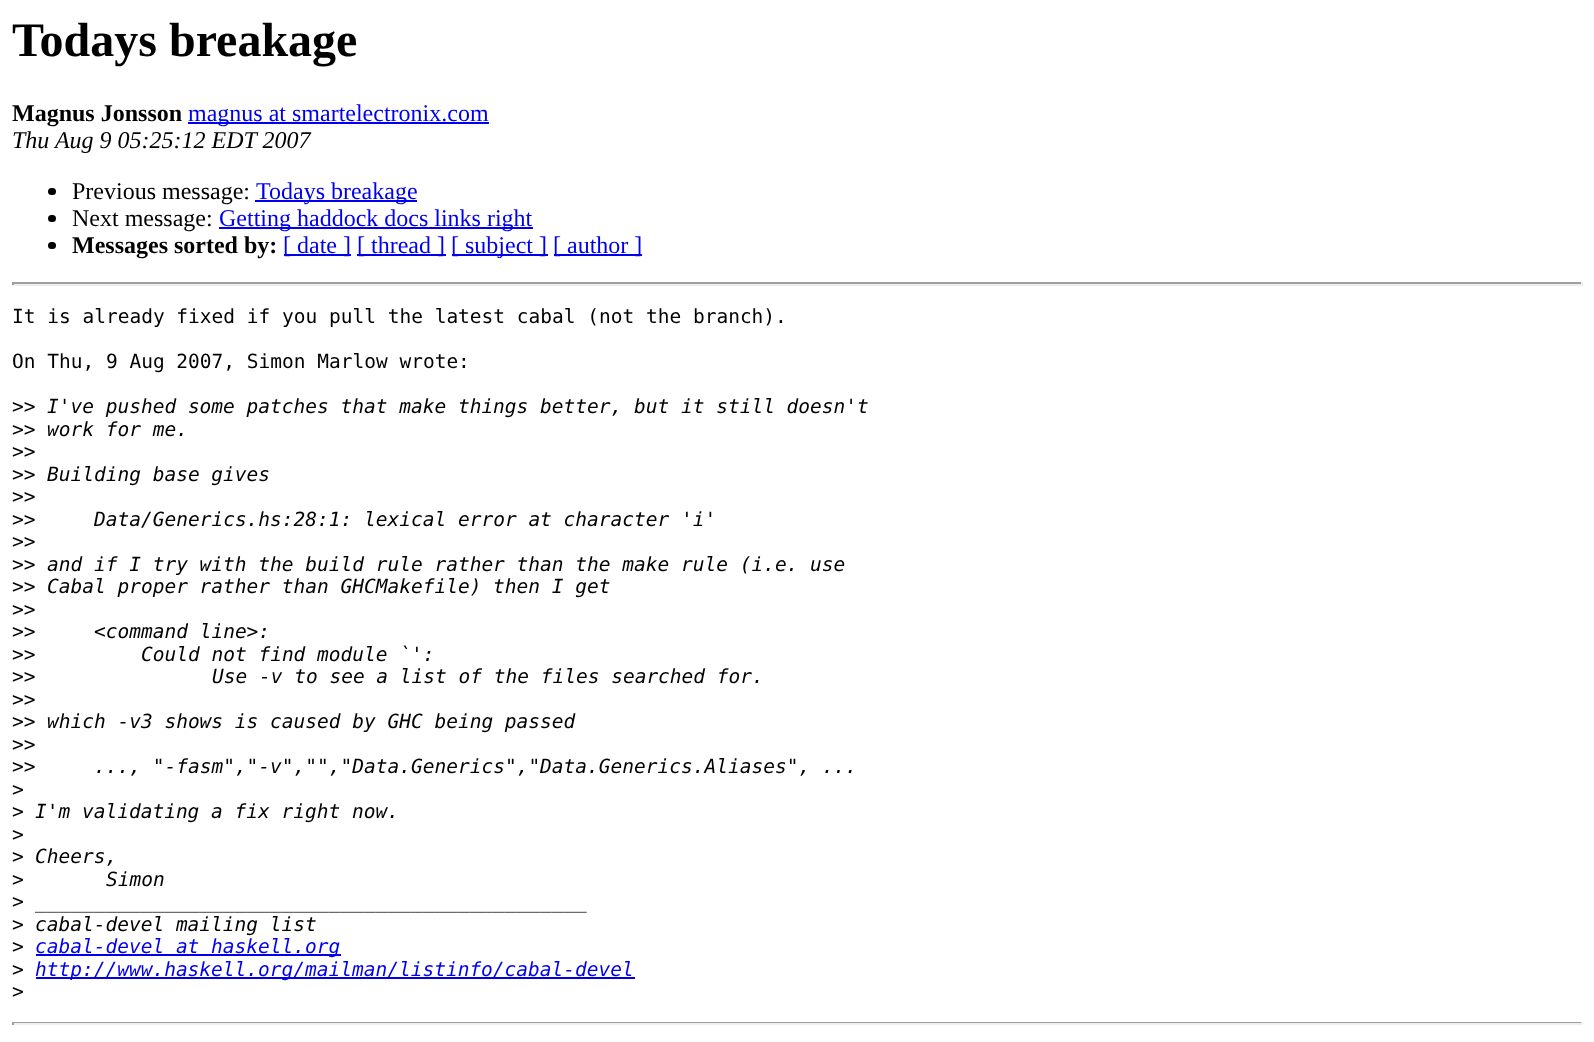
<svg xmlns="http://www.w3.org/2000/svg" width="1594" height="1042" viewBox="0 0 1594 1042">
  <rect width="100%" height="100%" fill="#ffffff"/>
  <text x="12" y="56" font-family="Liberation Serif" font-size="48" font-weight="bold" fill="#000000">Todays breakage</text>
  <text x="12" y="121" font-family="Liberation Serif" font-size="24" font-weight="bold" fill="#000000">Magnus Jonsson</text>
  <rect x="188" y="122" width="301" height="2" fill="#0000ee"/>
  <text x="188" y="121" font-family="Liberation Serif" font-size="24" fill="#0000ee">magnus at smartelectronix.com</text>
  <text x="12" y="148" font-family="Liberation Serif" font-size="24" font-style="italic" fill="#000000">Thu Aug 9 05:25:12 EDT 2007</text>
  <rect x="48" y="188" width="8" height="7" rx="3.5" fill="#000000"/>
  <text x="72" y="199" font-family="Liberation Serif" font-size="24" fill="#000000">Previous message:</text>
  <rect x="255" y="200" width="162" height="2" fill="#0000ee"/>
  <text x="256" y="199" font-family="Liberation Serif" font-size="24" fill="#0000ee">Todays breakage</text>
  <rect x="48" y="215" width="8" height="7" rx="3.5" fill="#000000"/>
  <text x="72" y="226" font-family="Liberation Serif" font-size="24" fill="#000000">Next message:</text>
  <rect x="219" y="227" width="314" height="2" fill="#0000ee"/>
  <text x="219" y="226" font-family="Liberation Serif" font-size="24" fill="#0000ee">Getting haddock docs links right</text>
  <rect x="48" y="242" width="8" height="7" rx="3.5" fill="#000000"/>
  <text x="72" y="253" font-family="Liberation Serif" font-size="24" font-weight="bold" fill="#000000">Messages sorted by:</text>
  <rect x="284" y="254" width="67" height="2" fill="#0000ee"/>
  <text x="283" y="253" font-family="Liberation Serif" font-size="24" fill="#0000ee">[ date ]</text>
  <rect x="357" y="254" width="89" height="2" fill="#0000ee"/>
  <text x="357" y="253" font-family="Liberation Serif" font-size="24" fill="#0000ee">[ thread ]</text>
  <rect x="452" y="254" width="96" height="2" fill="#0000ee"/>
  <text x="451" y="253" font-family="Liberation Serif" font-size="24" fill="#0000ee">[ subject ]</text>
  <rect x="554" y="254" width="88" height="2" fill="#0000ee"/>
  <text x="553" y="253" font-family="Liberation Serif" font-size="24" fill="#0000ee">[ author ]</text>
  <rect x="12" y="282" width="1571" height="2" fill="#9f9f9f"/>
  <rect x="1581" y="282" width="2" height="3" fill="#eeeeee"/>
  <rect x="12" y="284" width="1571" height="2" fill="#eeeeee"/>
  <rect x="12" y="282" width="2" height="3" fill="#9f9f9f"/>
  <text x="12" y="323" font-family="DejaVu Sans Mono" font-size="19.5" fill="#000000">It is already fixed if you pull the latest cabal (not the branch).</text>
  <text x="12" y="368" font-family="DejaVu Sans Mono" font-size="19.5" fill="#000000">On Thu, 9 Aug 2007, Simon Marlow wrote:</text>
  <text x="12" y="413" font-family="DejaVu Sans Mono" font-size="19.5" fill="#000000">&gt;&gt;</text>
  <text x="47" y="413" font-family="DejaVu Sans Mono" font-size="19.5" font-style="italic" fill="#000000">I've pushed some patches that make things better, but it still doesn't</text>
  <text x="12" y="436" font-family="DejaVu Sans Mono" font-size="19.5" fill="#000000">&gt;&gt;</text>
  <text x="47" y="436" font-family="DejaVu Sans Mono" font-size="19.5" font-style="italic" fill="#000000">work for me.</text>
  <text x="12" y="458" font-family="DejaVu Sans Mono" font-size="19.5" fill="#000000">&gt;&gt;</text>
  <text x="12" y="481" font-family="DejaVu Sans Mono" font-size="19.5" fill="#000000">&gt;&gt;</text>
  <text x="47" y="481" font-family="DejaVu Sans Mono" font-size="19.5" font-style="italic" fill="#000000">Building base gives</text>
  <text x="12" y="503" font-family="DejaVu Sans Mono" font-size="19.5" fill="#000000">&gt;&gt;</text>
  <text x="12" y="526" font-family="DejaVu Sans Mono" font-size="19.5" fill="#000000">&gt;&gt;</text>
  <text x="94" y="526" font-family="DejaVu Sans Mono" font-size="19.5" font-style="italic" fill="#000000">Data/Generics.hs:28:1: lexical error at character 'i'</text>
  <text x="12" y="548" font-family="DejaVu Sans Mono" font-size="19.5" fill="#000000">&gt;&gt;</text>
  <text x="12" y="571" font-family="DejaVu Sans Mono" font-size="19.5" fill="#000000">&gt;&gt;</text>
  <text x="47" y="571" font-family="DejaVu Sans Mono" font-size="19.5" font-style="italic" fill="#000000">and if I try with the build rule rather than the make rule (i.e. use</text>
  <text x="12" y="593" font-family="DejaVu Sans Mono" font-size="19.5" fill="#000000">&gt;&gt;</text>
  <text x="47" y="593" font-family="DejaVu Sans Mono" font-size="19.5" font-style="italic" fill="#000000">Cabal proper rather than GHCMakefile) then I get</text>
  <text x="12" y="616" font-family="DejaVu Sans Mono" font-size="19.5" fill="#000000">&gt;&gt;</text>
  <text x="12" y="638" font-family="DejaVu Sans Mono" font-size="19.5" fill="#000000">&gt;&gt;</text>
  <text x="94" y="638" font-family="DejaVu Sans Mono" font-size="19.5" font-style="italic" fill="#000000">&lt;command line&gt;:</text>
  <text x="12" y="661" font-family="DejaVu Sans Mono" font-size="19.5" fill="#000000">&gt;&gt;</text>
  <text x="141" y="661" font-family="DejaVu Sans Mono" font-size="19.5" font-style="italic" fill="#000000">Could not find module `':</text>
  <text x="12" y="683" font-family="DejaVu Sans Mono" font-size="19.5" fill="#000000">&gt;&gt;</text>
  <text x="212" y="683" font-family="DejaVu Sans Mono" font-size="19.5" font-style="italic" fill="#000000">Use -v to see a list of the files searched for.</text>
  <text x="12" y="706" font-family="DejaVu Sans Mono" font-size="19.5" fill="#000000">&gt;&gt;</text>
  <text x="12" y="728" font-family="DejaVu Sans Mono" font-size="19.5" fill="#000000">&gt;&gt;</text>
  <text x="47" y="728" font-family="DejaVu Sans Mono" font-size="19.5" font-style="italic" fill="#000000">which -v3 shows is caused by GHC being passed</text>
  <text x="12" y="751" font-family="DejaVu Sans Mono" font-size="19.5" fill="#000000">&gt;&gt;</text>
  <text x="12" y="773" font-family="DejaVu Sans Mono" font-size="19.5" fill="#000000">&gt;&gt;</text>
  <text x="94" y="773" font-family="DejaVu Sans Mono" font-size="19.5" font-style="italic" fill="#000000">..., "-fasm","-v","","Data.Generics","Data.Generics.Aliases", ...</text>
  <text x="12" y="796" font-family="DejaVu Sans Mono" font-size="19.5" fill="#000000">&gt;</text>
  <text x="12" y="818" font-family="DejaVu Sans Mono" font-size="19.5" fill="#000000">&gt;</text>
  <text x="35" y="818" font-family="DejaVu Sans Mono" font-size="19.5" font-style="italic" fill="#000000">I'm validating a fix right now.</text>
  <text x="12" y="841" font-family="DejaVu Sans Mono" font-size="19.5" fill="#000000">&gt;</text>
  <text x="12" y="863" font-family="DejaVu Sans Mono" font-size="19.5" fill="#000000">&gt;</text>
  <text x="35" y="863" font-family="DejaVu Sans Mono" font-size="19.5" font-style="italic" fill="#000000">Cheers,</text>
  <text x="12" y="886" font-family="DejaVu Sans Mono" font-size="19.5" fill="#000000">&gt;</text>
  <text x="106" y="886" font-family="DejaVu Sans Mono" font-size="19.5" font-style="italic" fill="#000000">Simon</text>
  <text x="12" y="908" font-family="DejaVu Sans Mono" font-size="19.5" fill="#000000">&gt;</text>
  <text x="35" y="908" font-family="DejaVu Sans Mono" font-size="19.5" font-style="italic" fill="#000000">_______________________________________________</text>
  <text x="12" y="931" font-family="DejaVu Sans Mono" font-size="19.5" fill="#000000">&gt;</text>
  <text x="35" y="931" font-family="DejaVu Sans Mono" font-size="19.5" font-style="italic" fill="#000000">cabal-devel mailing list</text>
  <text x="12" y="953" font-family="DejaVu Sans Mono" font-size="19.5" fill="#000000">&gt;</text>
  <rect x="36" y="954" width="305" height="2" fill="#0000ee"/>
  <text x="35" y="953" font-family="DejaVu Sans Mono" font-size="19.5" font-style="italic" fill="#0000ee">cabal-devel at haskell.org</text>
  <text x="12" y="976" font-family="DejaVu Sans Mono" font-size="19.5" fill="#000000">&gt;</text>
  <rect x="36" y="977" width="599" height="2" fill="#0000ee"/>
  <text x="35" y="976" font-family="DejaVu Sans Mono" font-size="19.5" font-style="italic" fill="#0000ee">http://www.haskell.org/mailman/listinfo/cabal-devel</text>
  <text x="12" y="998" font-family="DejaVu Sans Mono" font-size="19.5" fill="#000000">&gt;</text>
  <rect x="12" y="1022" width="1571" height="1" fill="#9f9f9f"/>
  <rect x="1581" y="1022" width="2" height="3" fill="#eeeeee"/>
  <rect x="12" y="1023" width="1571" height="2" fill="#eeeeee"/>
  <rect x="12" y="1022" width="2" height="3" fill="#9f9f9f"/>
</svg>
